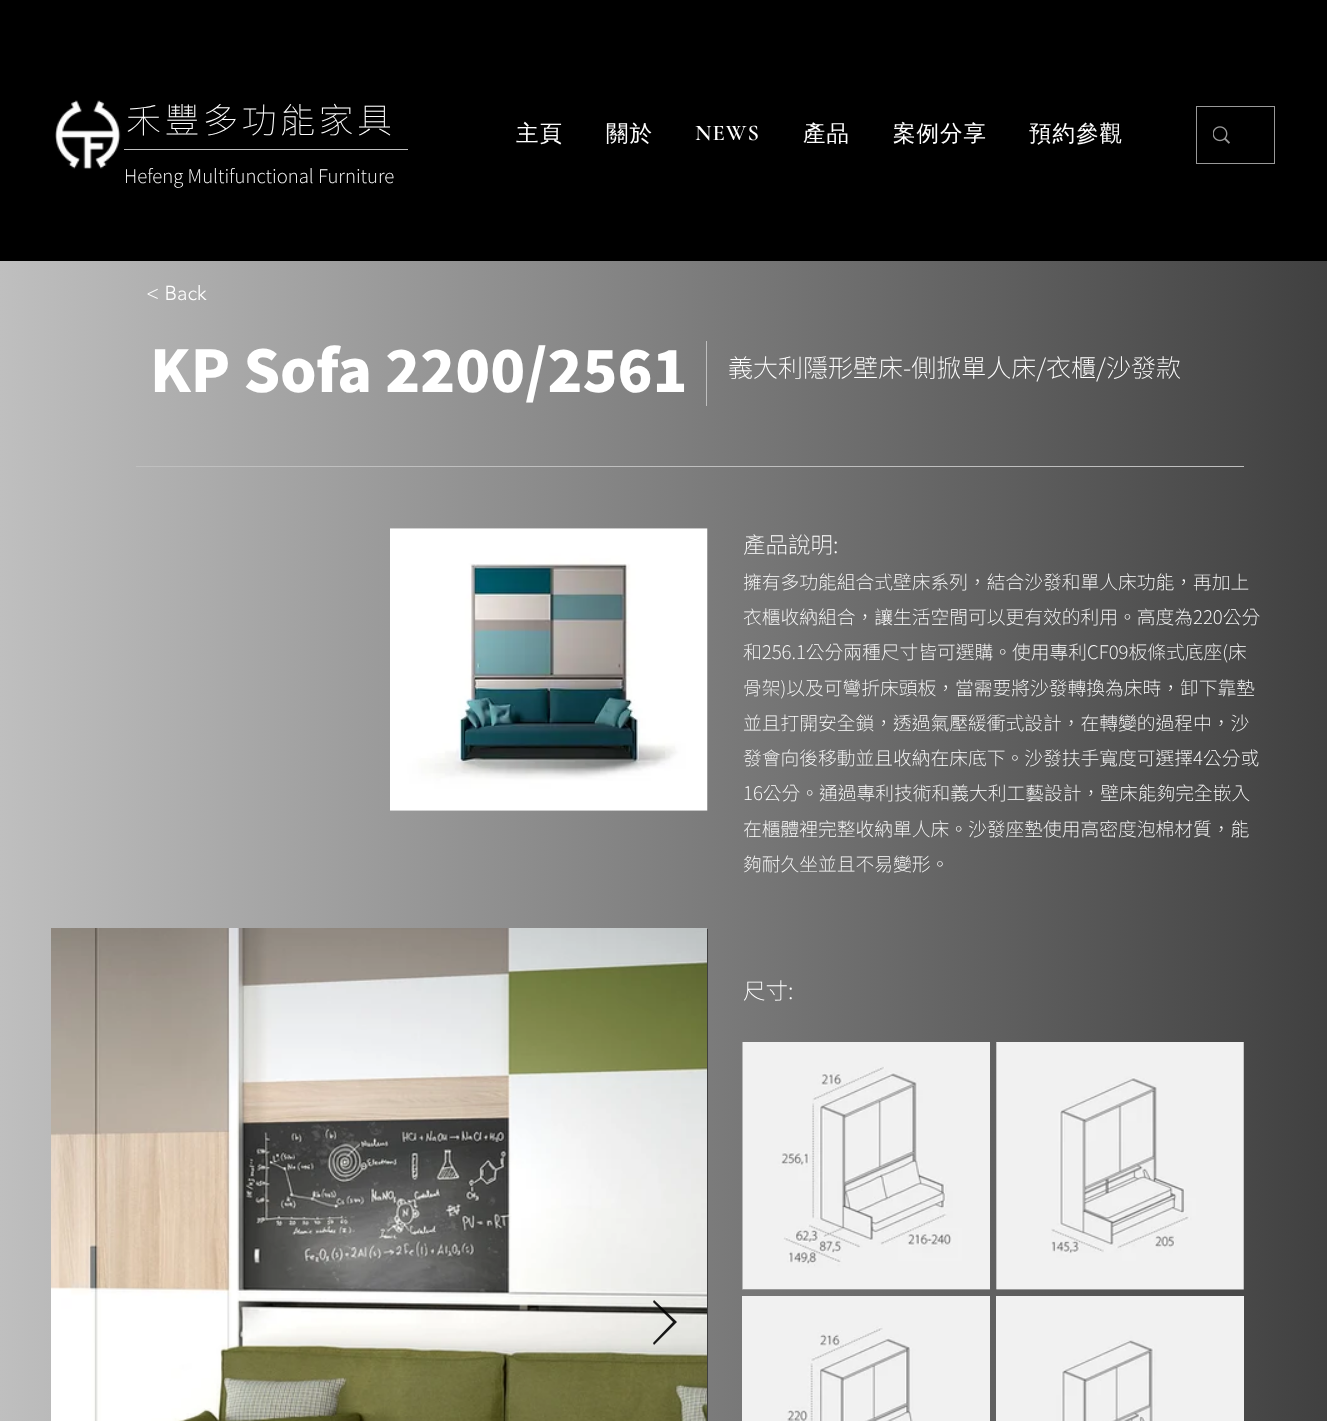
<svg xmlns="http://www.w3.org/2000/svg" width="1327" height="1421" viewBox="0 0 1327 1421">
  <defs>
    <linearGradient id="g1" gradientUnits="userSpaceOnUse" x1="0" y1="1118" x2="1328" y2="1118"><stop offset="0" stop-color="#bfbfbf"/><stop offset="1" stop-color="#404040"/></linearGradient>
  </defs>
  <rect width="100%" height="100%" fill="#ffffff"/>
  <rect x="0" y="0" width="1327" height="261" fill="#000000"/>
  <image x="55" y="100" width="66" height="69" href="img1.png"/>
  <text x="126" y="133" font-family="Noto Sans TC" font-size="35" font-weight="100" letter-spacing="3.5" fill="#ffffff">禾豐多功能家具</text>
  <rect x="124" y="149" width="284" height="1" fill="#bfbfbf"/>
  <text x="124" y="183" font-family="Noto Sans TC" font-size="18.75" font-weight="200" fill="#ffffff">Hefeng Multifunctional Furniture</text>
  <text x="516" y="141" font-family="WenQuanYi Zen Hei" font-size="22.5" font-weight="500" letter-spacing="1" fill="#ffffff">主頁</text>
  <text x="606" y="141" font-family="WenQuanYi Zen Hei" font-size="22.5" font-weight="500" letter-spacing="1" fill="#ffffff">關於</text>
  <text x="695" y="140" font-family="Cormorant Garamond" font-size="22.5" font-weight="600" letter-spacing="1" fill="#ffffff">NEWS</text>
  <text x="803" y="141" font-family="WenQuanYi Zen Hei" font-size="22.5" font-weight="500" letter-spacing="1" fill="#ffffff">產品</text>
  <text x="893" y="141" font-family="WenQuanYi Zen Hei" font-size="22.5" font-weight="500" letter-spacing="1" fill="#ffffff">案例分享</text>
  <text x="1029" y="141" font-family="WenQuanYi Zen Hei" font-size="22.5" font-weight="500" letter-spacing="1" fill="#ffffff">預約參觀</text>
  <rect x="1196.5" y="106.5" width="78" height="57" fill="none" stroke="#999999"/>
  <image x="1213" y="126" width="17" height="18" href="img2.png"/>
  <rect x="0" y="261" width="1327" height="1160" fill="url(#g1)"/>
  <text x="146" y="300" font-family="'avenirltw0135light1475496'" font-size="20" font-weight="300" fill="#ffffff">&lt; Back</text>
  <text x="150" y="392" font-family="Noto Sans TC" font-size="57.5" font-weight="900" fill="#ffffff">KP Sofa 2200/2561</text>
  <rect x="706" y="341" width="1" height="65" fill="#bfbfbf"/>
  <text x="728" y="377" font-family="Noto Sans TC" font-size="25" font-weight="200" fill="#ffffff">義大利隱形壁床-側掀單人床/衣櫃/沙發款</text>
  <rect x="136" y="466" width="1108" height="1" fill="#bfbfbf"/>
  <image x="390" y="528" width="318" height="283" href="img3.png"/>
  <text x="743" y="553" font-family="Noto Sans TC" font-size="22.5" font-weight="200" fill="#ffffff">產品說明:</text>
  <text x="743" y="589" font-family="Noto Sans TC" font-size="18.75" font-weight="200" fill="#ffffff">擁有多功能組合式壁床系列，結合沙發和單人床功能，再加上</text>
  <text x="743" y="624" font-family="Noto Sans TC" font-size="18.75" font-weight="200" fill="#ffffff">衣櫃收納組合，讓生活空間可以更有效的利用。高度為220公分</text>
  <text x="743" y="659" font-family="Noto Sans TC" font-size="18.75" font-weight="200" fill="#ffffff">和256.1公分兩種尺寸皆可選購。使用專利CF09板條式底座(床</text>
  <text x="743" y="695" font-family="Noto Sans TC" font-size="18.75" font-weight="200" fill="#ffffff">骨架)以及可彎折床頭板，當需要將沙發轉換為床時，卸下靠墊</text>
  <text x="743" y="730" font-family="Noto Sans TC" font-size="18.75" font-weight="200" fill="#ffffff">並且打開安全鎖，透過氣壓緩衝式設計，在轉變的過程中，沙</text>
  <text x="743" y="765" font-family="Noto Sans TC" font-size="18.75" font-weight="200" fill="#ffffff">發會向後移動並且收納在床底下。沙發扶手寬度可選擇4公分或</text>
  <text x="743" y="800" font-family="Noto Sans TC" font-size="18.75" font-weight="200" fill="#ffffff">16公分。通過專利技術和義大利工藝設計，壁床能夠完全嵌入</text>
  <text x="743" y="836" font-family="Noto Sans TC" font-size="18.75" font-weight="200" fill="#ffffff">在櫃體裡完整收納單人床。沙發座墊使用高密度泡棉材質，能</text>
  <text x="743" y="871" font-family="Noto Sans TC" font-size="18.75" font-weight="200" fill="#ffffff">夠耐久坐並且不易變形。</text>
  <rect x="707" y="929" width="1" height="492" fill="#404040"/>
  <image x="51" y="928" width="656" height="493" href="img4.png"/>
  <path d="M653 1302L654 1300L677 1322L654 1345L653 1343L673 1322Z" fill="#000000" fill-opacity="0.9"/>
  <text x="743" y="999" font-family="Noto Sans TC" font-size="22.5" font-weight="200" fill="#ffffff">尺寸:</text>
  <rect x="743" y="1289" width="247" height="1" fill="#404040"/>
  <image x="742" y="1042" width="248" height="248" href="img5.png"/>
  <rect x="996" y="1043" width="248" height="247" fill="#404040"/>
  <image x="996" y="1042" width="248" height="248" href="img6.png"/>
  <image x="742" y="1296" width="248" height="125" href="img7.png"/>
  <image x="996" y="1296" width="248" height="125" href="img8.png"/>
</svg>
